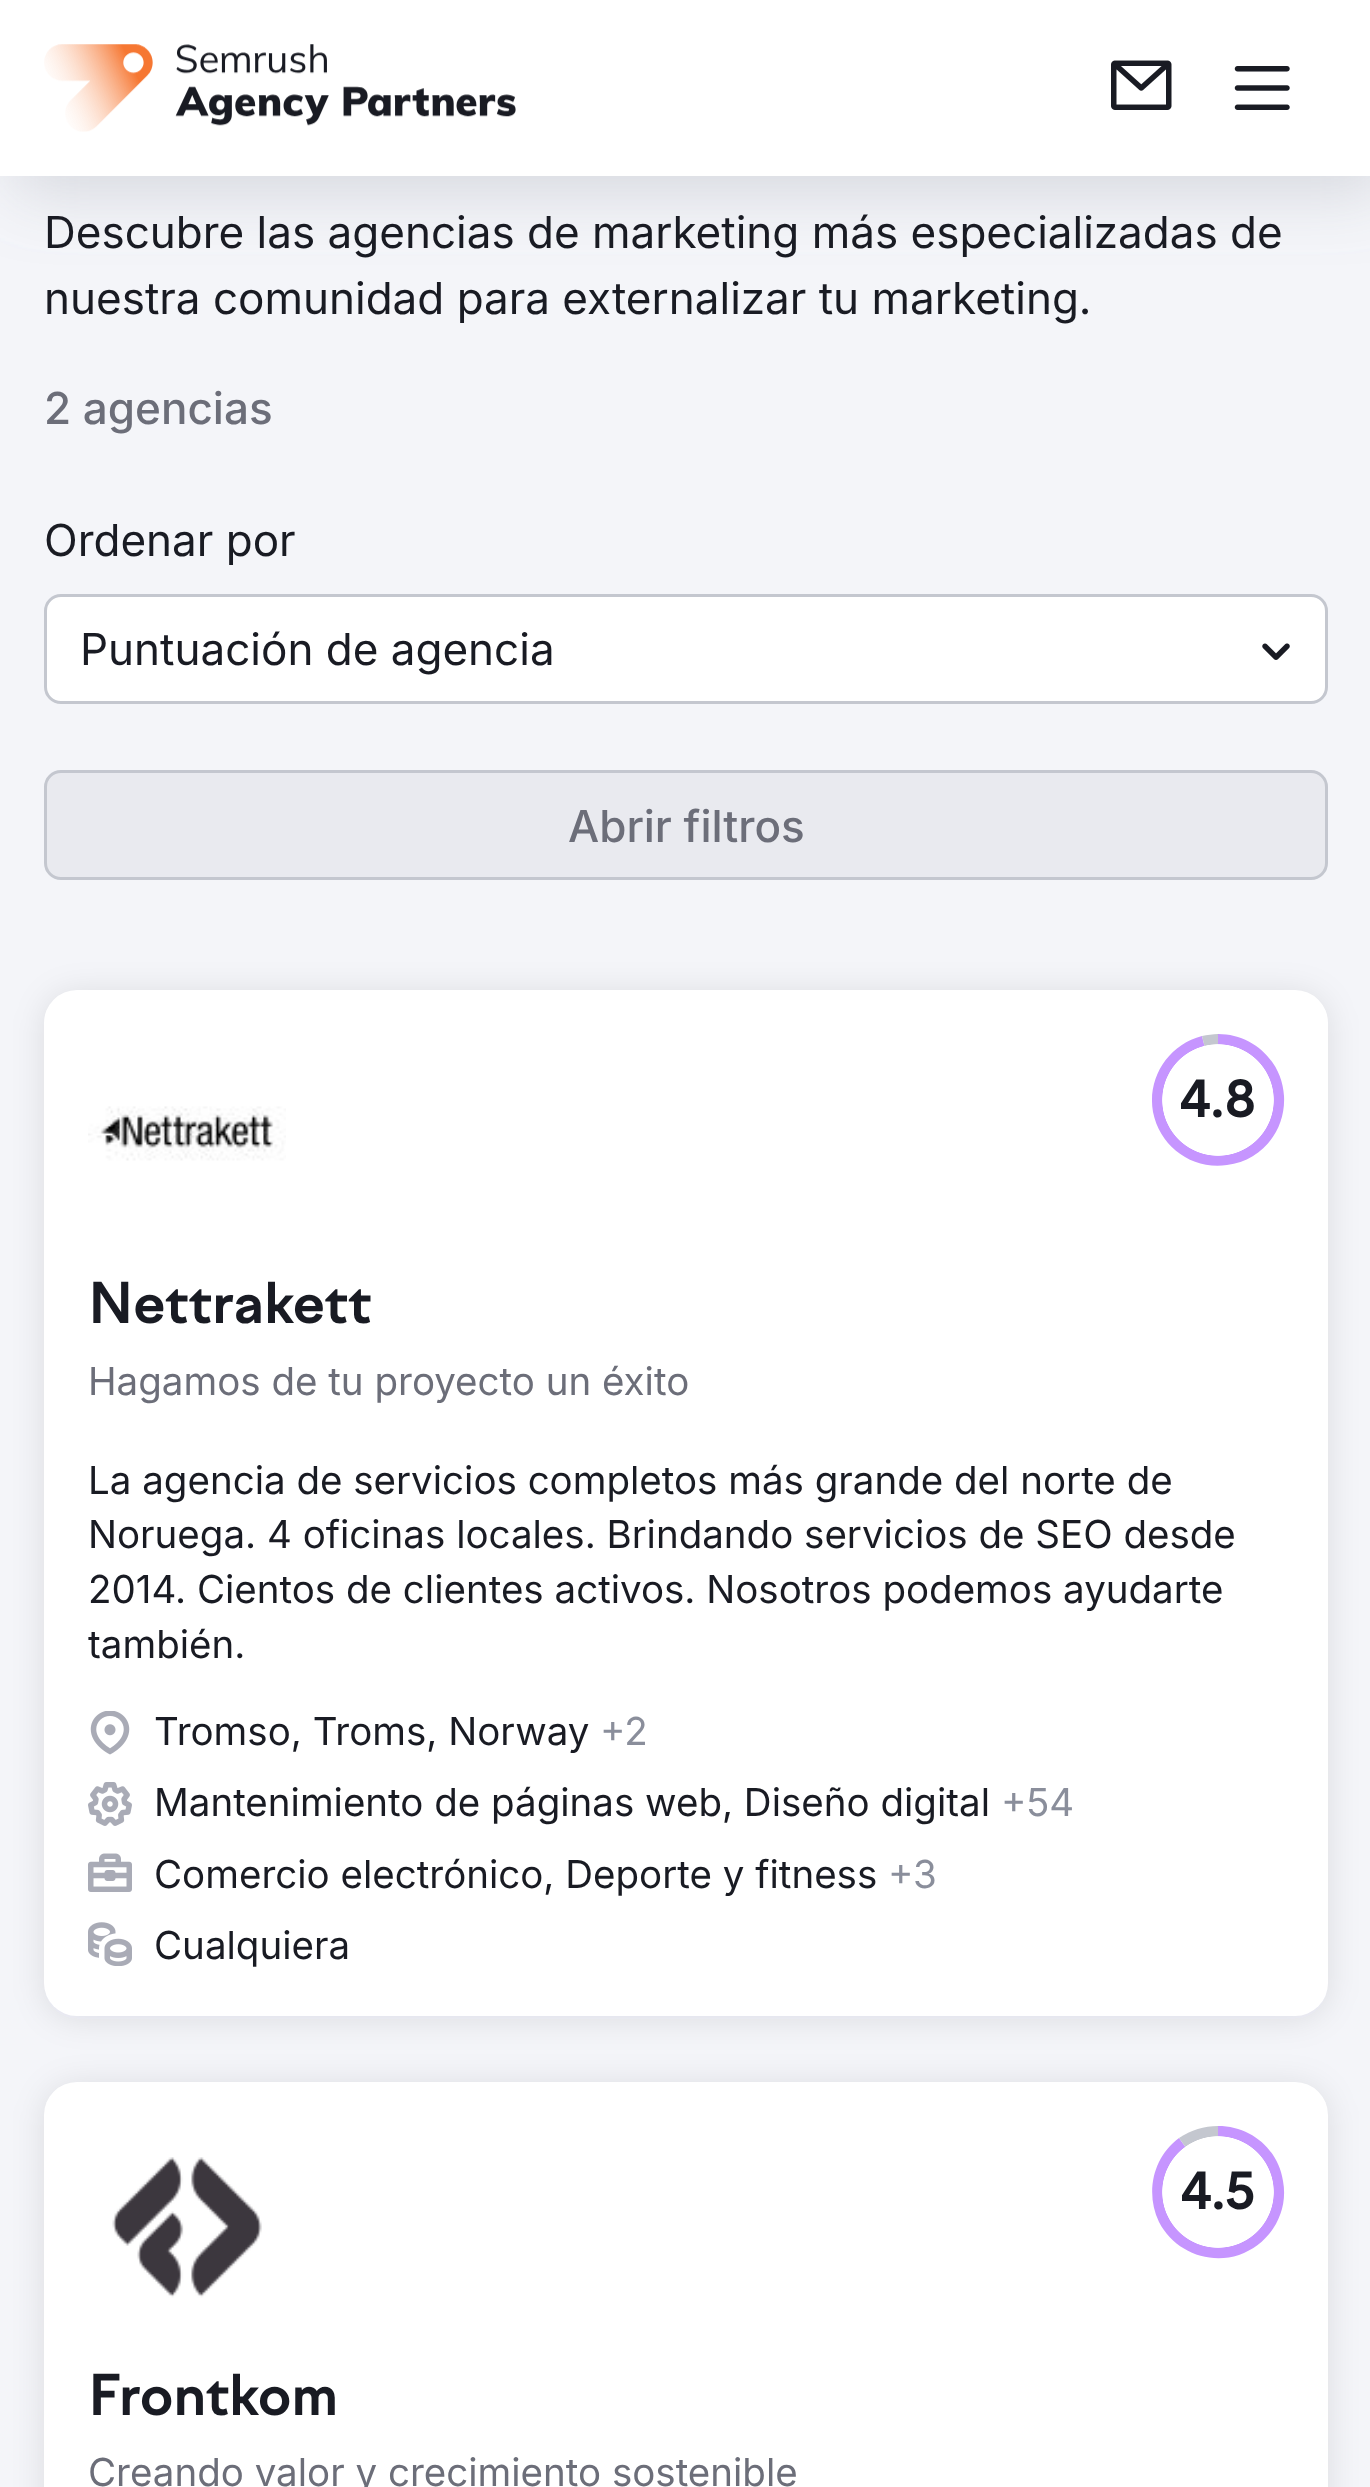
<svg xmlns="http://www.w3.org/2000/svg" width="1370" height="2487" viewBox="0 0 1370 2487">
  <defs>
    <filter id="blur1" x="-50%" y="-200%" width="200%" height="500%"><feGaussianBlur stdDeviation="34.5"/></filter>
    <filter id="blur2" x="-50%" y="-200%" width="200%" height="500%"><feGaussianBlur stdDeviation="16.5"/></filter>
    <radialGradient id="g1" gradientUnits="userSpaceOnUse" cx="1218" cy="1100" r="66"><stop offset="0.84" stop-color="#ffffff"/><stop offset="0.85" stop-color="#ffffff" stop-opacity="0"/><stop offset="1" stop-color="#000000" stop-opacity="0"/></radialGradient>
    <radialGradient id="g2" gradientUnits="userSpaceOnUse" cx="1218" cy="2192" r="66"><stop offset="0.84" stop-color="#ffffff"/><stop offset="0.85" stop-color="#ffffff" stop-opacity="0"/><stop offset="1" stop-color="#000000" stop-opacity="0"/></radialGradient>
  </defs>
  <rect width="100%" height="100%" fill="#f4f5f9"/>
  <rect x="14" y="14" width="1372" height="176" fill="#898d9a" fill-opacity="0.3" filter="url(#blur1)"/>
  <rect x="0" y="0" width="1370" height="176" fill="#ffffff"/>
  <image x="44" y="44" width="472" height="88" href="img1.png"/>
  <image x="1111" y="60" width="61" height="50" href="img2.png"/>
  <image x="1234" y="66" width="56" height="44" href="img3.png"/>
  <text x="44" y="248" font-family="Inter" font-size="44" fill="#191b23">Descubre las agencias de marketing más especializadas de</text>
  <text x="44" y="314" font-family="Inter" font-size="44" fill="#191b23">nuestra comunidad para externalizar tu marketing.</text>
  <text x="44" y="424" font-family="Inter" font-size="44" font-weight="500" fill="#6c6e79">2 agencias</text>
  <text x="44" y="556" font-family="Inter" font-size="44" fill="#191b23">Ordenar por</text>
  <rect x="45.5" y="595.5" width="1281" height="107" rx="15.5" fill="#ffffff" stroke="#c4c7cf" stroke-width="3"/>
  <text x="80" y="665" font-family="Inter" font-size="44" fill="#191b23">Puntuación de agencia</text>
  <image x="1262" y="643" width="28" height="17" href="img4.png"/>
  <rect x="45.5" y="771.5" width="1281" height="107" rx="15.5" fill="#e9eaef" stroke="#c4c7cf" stroke-width="3"/>
  <text x="568" y="842" font-family="Inter" font-size="44" font-weight="500" fill="#6c6e79">Abrir filtros</text>
  <rect x="44" y="993" width="1284" height="1026" rx="33" fill="#191b23" fill-opacity="0.1" filter="url(#blur2)"/>
  <rect x="44" y="990" width="1284" height="1026" rx="33" fill="#ffffff"/>
  <path d="M1218 1100V1034C1253 1034 1282 1061 1284 1096C1286 1131 1261 1161 1227 1165C1192 1170 1160 1147 1153 1112C1147 1078 1168 1045 1202 1036Z" fill="#c695ff"/>
  <path d="M1218 1100L1202 1036C1207 1035 1213 1034 1218 1034Z" fill="#c4c7cf"/>
  <rect x="1162" y="1044" width="112" height="112" fill="url(#g1)"/>
  <text x="1180" y="1117" font-family="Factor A" font-size="50" font-weight="bold" fill="#191b23">4.8</text>
  <image x="88" y="1106" width="198" height="55" href="img5.png"/>
  <text x="88" y="1323" font-family="Factor A" font-size="55" font-weight="bold" fill="#191b23">Nettrakett</text>
  <text x="88" y="1395" font-family="Inter" font-size="38.5" fill="#6c6e79">Hagamos de tu proyecto un éxito</text>
  <text x="88" y="1494" font-family="Inter" font-size="38.5" fill="#191b23">La agencia de servicios completos más grande del norte de</text>
  <text x="88" y="1548" font-family="Inter" font-size="38.5" fill="#191b23">Noruega. 4 oficinas locales. Brindando servicios de SEO desde</text>
  <text x="88" y="1603" font-family="Inter" font-size="38.5" fill="#191b23">2014. Cientos de clientes activos. Nosotros podemos ayudarte</text>
  <text x="88" y="1658" font-family="Inter" font-size="38.5" fill="#191b23">también.</text>
  <image x="90" y="1711" width="40" height="44" href="img6.png"/>
  <text x="154" y="1745" font-family="Inter" font-size="38.5" fill="#191b23">Tromso, Troms, Norway</text>
  <text x="600" y="1745" font-family="Inter" font-size="38.5" fill="#8a8e9b">+2</text>
  <image x="88" y="1782" width="44" height="44" href="img7.png"/>
  <text x="154" y="1816" font-family="Inter" font-size="38.5" fill="#191b23">Mantenimiento de páginas web, Diseño digital</text>
  <text x="1001" y="1816" font-family="Inter" font-size="38.5" fill="#8a8e9b">+54</text>
  <image x="88" y="1853" width="44" height="39" href="img8.png"/>
  <text x="154" y="1888" font-family="Inter" font-size="38.5" fill="#191b23">Comercio electrónico, Deporte y fitness</text>
  <text x="888" y="1888" font-family="Inter" font-size="38.5" fill="#8a8e9b">+3</text>
  <image x="88" y="1922" width="44" height="44" href="img9.png"/>
  <text x="154" y="1959" font-family="Inter" font-size="38.5" fill="#191b23">Cualquiera</text>
  <rect x="44" y="2085" width="1284" height="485" rx="33" fill="#191b23" fill-opacity="0.1" filter="url(#blur2)"/>
  <rect x="44" y="2082" width="1284" height="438" rx="33" fill="#ffffff"/>
  <image x="112" y="2157" width="150" height="141" href="img10.png"/>
  <path d="M1218 2192V2126C1251 2126 1278 2149 1283 2181C1289 2213 1270 2244 1239 2255C1208 2265 1174 2251 1159 2222C1145 2193 1153 2157 1179 2138Z" fill="#c695ff"/>
  <path d="M1218 2192L1179 2138C1191 2130 1204 2126 1218 2126Z" fill="#c4c7cf"/>
  <rect x="1162" y="2136" width="112" height="112" fill="url(#g2)"/>
  <text x="1181" y="2209" font-family="Factor A" font-size="50" font-weight="bold" fill="#191b23">4.5</text>
  <text x="88" y="2415" font-family="Factor A" font-size="55" font-weight="bold" fill="#191b23">Frontkom</text>
  <text x="88" y="2486" font-family="Inter" font-size="38.5" fill="#6c6e79">Creando valor y crecimiento sostenible</text>
</svg>
